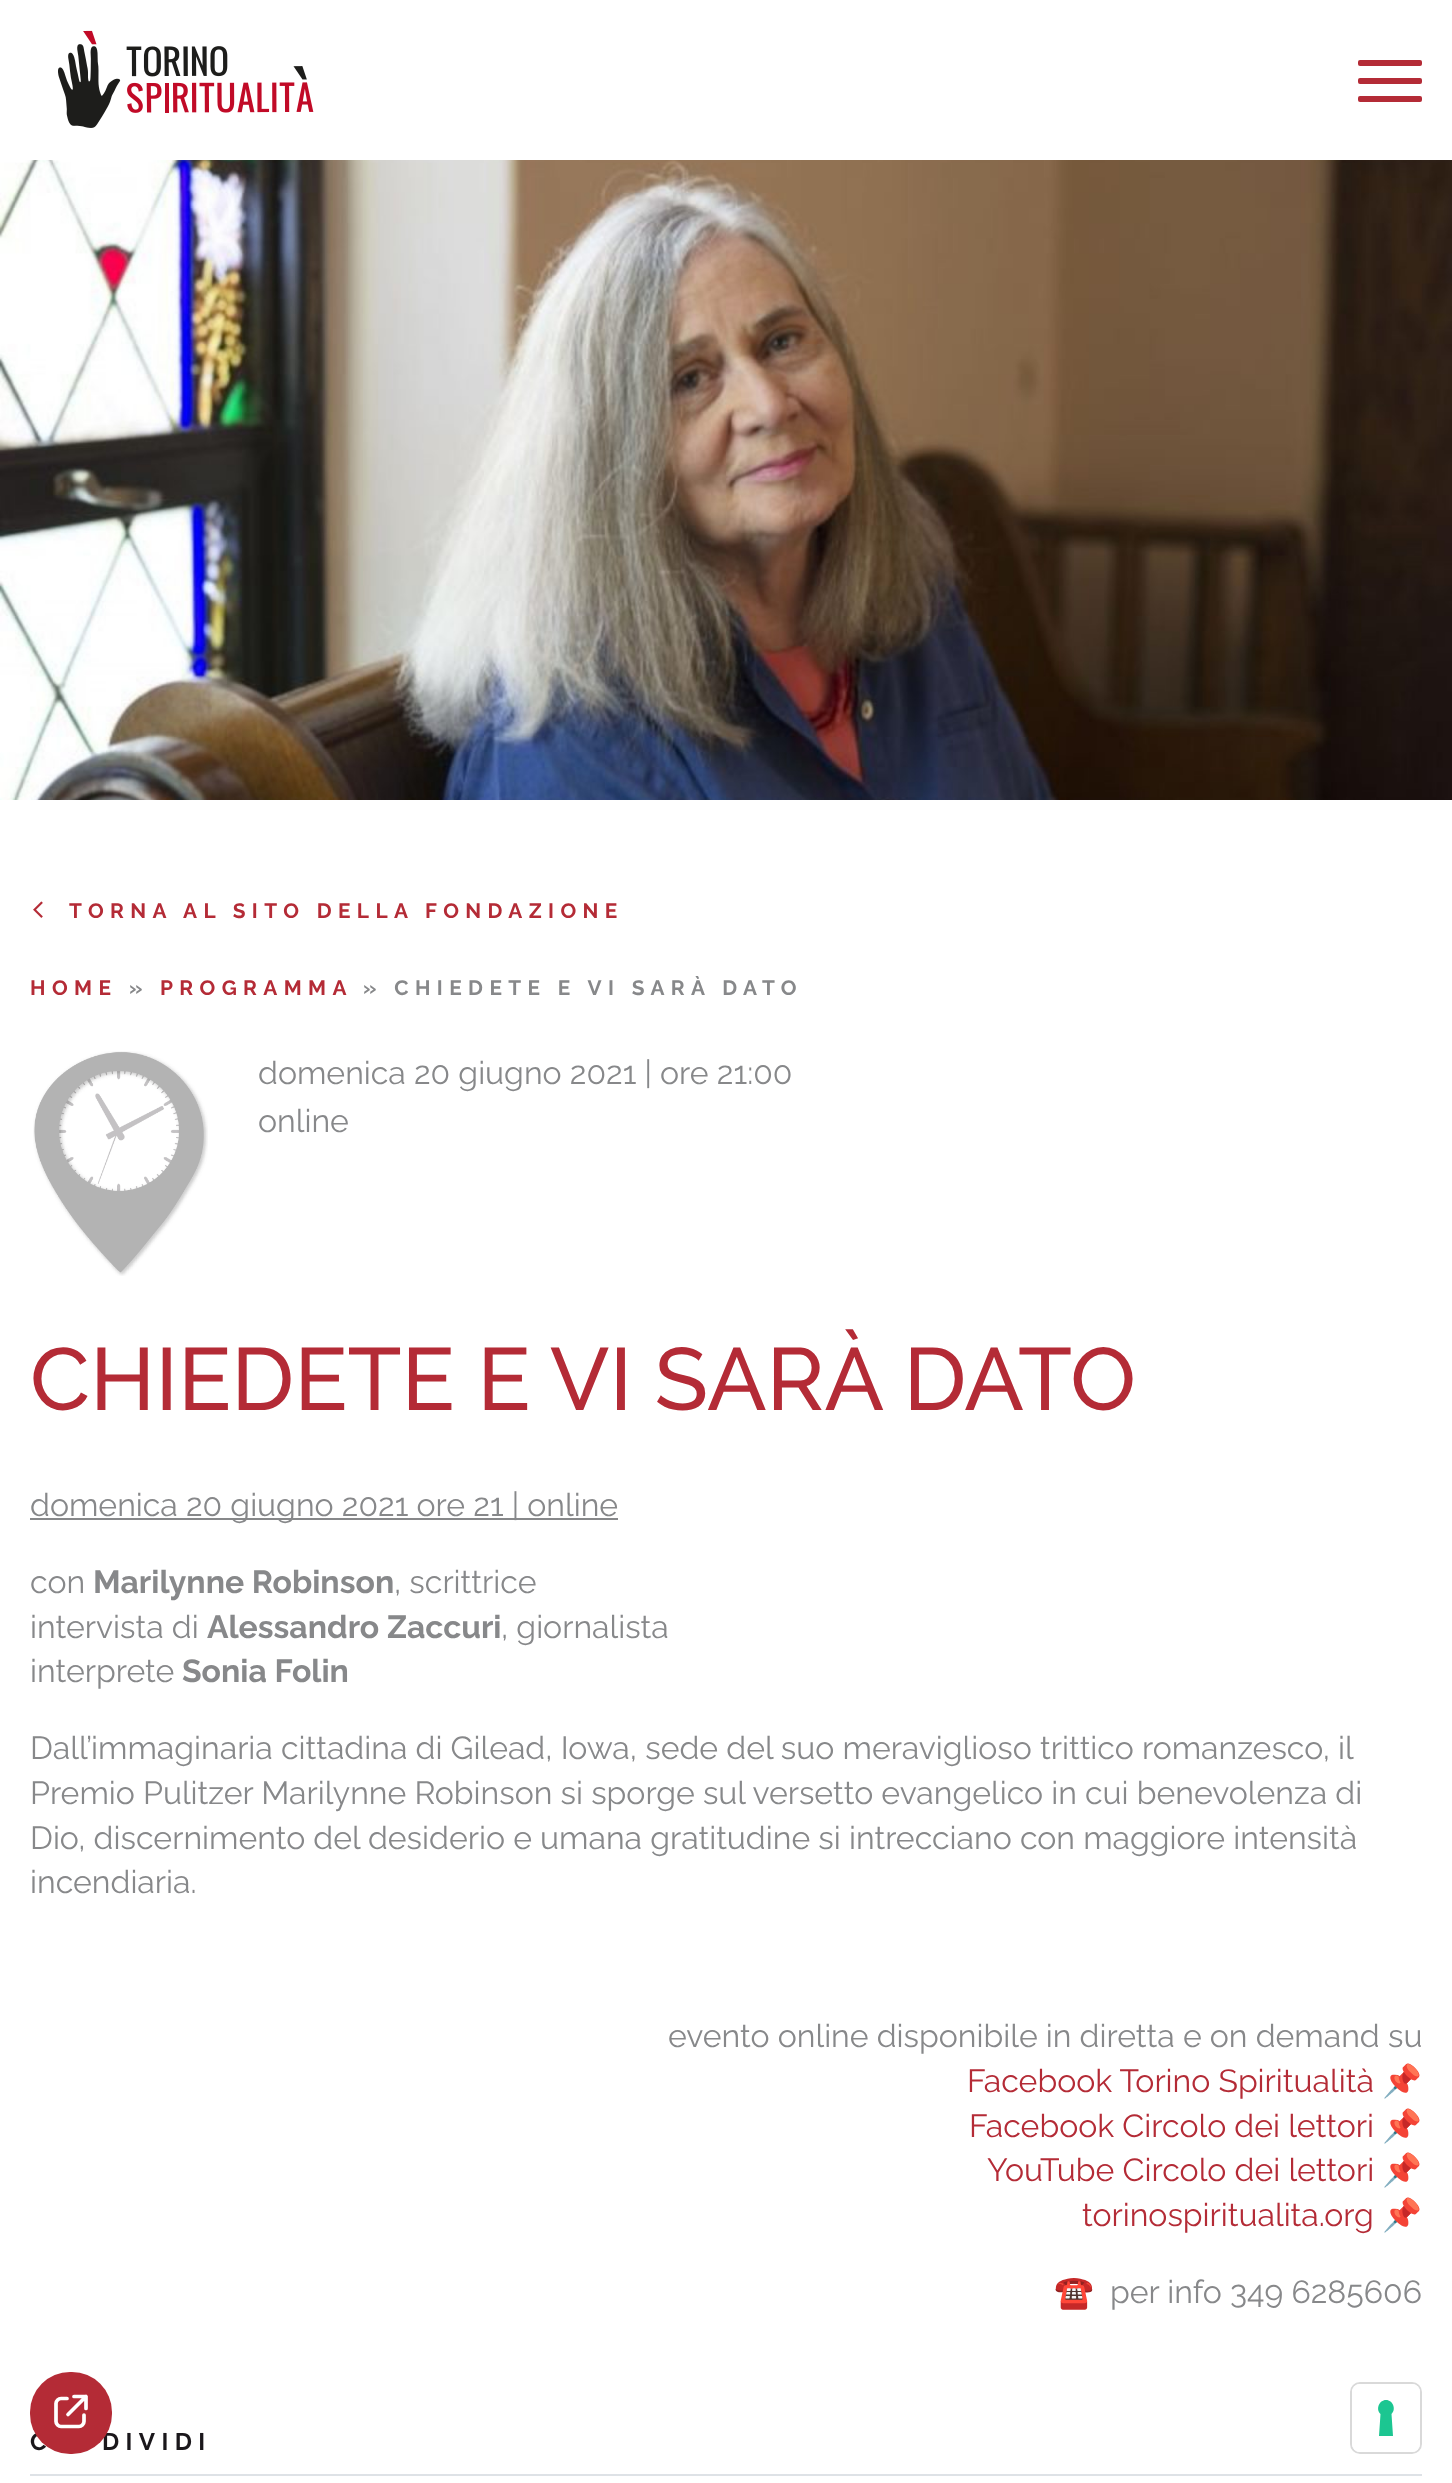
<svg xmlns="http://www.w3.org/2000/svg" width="1452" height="2483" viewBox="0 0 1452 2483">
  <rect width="100%" height="100%" fill="#ffffff"/>
  <image x="58" y="30" width="256" height="98" href="img1.png"/>
  <rect x="1358" y="78" width="64" height="6" rx="2" fill="#b42b36"/>
  <rect x="1358" y="60" width="64" height="6" rx="2" fill="#b42b36"/>
  <rect x="1358" y="96" width="64" height="6" rx="2" fill="#b42b36"/>
  <image x="0" y="160" width="1452" height="640" href="img2.png"/>
  <image x="33" y="901" width="10" height="17" href="img3.png"/>
  <text x="69" y="918" font-family="Raleway" font-size="20.8" font-weight="bold" letter-spacing="6.4" fill="#b42b36">TORNA AL SITO DELLA FONDAZIONE</text>
  <text x="30" y="995" font-family="Raleway" font-size="20.8" font-weight="bold" letter-spacing="6.4" fill="#b42b36">HOME</text>
  <text x="129" y="995" font-family="Raleway" font-size="20.8" font-weight="bold" letter-spacing="6.4" fill="#87888a">»</text>
  <text x="160" y="995" font-family="Raleway" font-size="20.8" font-weight="bold" letter-spacing="6.4" fill="#b42b36">PROGRAMMA</text>
  <text x="363" y="995" font-family="Raleway" font-size="20.8" font-weight="bold" letter-spacing="6.4" fill="#87888a">» CHIEDETE E VI SARÀ DATO</text>
  <image x="33" y="1051" width="175" height="225" href="img4.png"/>
  <text x="258" y="1084" font-family="Raleway" font-size="32" fill="#87888a">domenica 20 giugno 2021 | ore 21:00</text>
  <text x="258" y="1132" font-family="Raleway" font-size="32" fill="#87888a">online</text>
  <text x="30" y="1410" font-family="Raleway" font-size="88" font-weight="500" fill="#b42b36">CHIEDETE E VI SARÀ DATO</text>
  <rect x="30" y="1518" width="588" height="2" fill="#87888a"/>
  <text x="30" y="1516" font-family="Raleway" font-size="32" fill="#87888a">domenica 20 giugno 2021 ore 21 | online</text>
  <text x="30" y="1593" font-family="Raleway" font-size="32" fill="#87888a">con</text>
  <text x="93" y="1593" font-family="Raleway" font-size="32" font-weight="bold" fill="#87888a">Marilynne Robinson</text>
  <text x="394" y="1593" font-family="Raleway" font-size="32" fill="#87888a">, scrittrice</text>
  <text x="30" y="1638" font-family="Raleway" font-size="32" fill="#87888a">intervista di</text>
  <text x="207" y="1638" font-family="Raleway" font-size="32" font-weight="bold" fill="#87888a">Alessandro Zaccuri</text>
  <text x="501" y="1638" font-family="Raleway" font-size="32" fill="#87888a">, giornalista</text>
  <text x="30" y="1682" font-family="Raleway" font-size="32" fill="#87888a">interprete</text>
  <text x="182" y="1682" font-family="Raleway" font-size="32" font-weight="bold" fill="#87888a">Sonia Folin</text>
  <text x="30" y="1759" font-family="Raleway" font-size="32" fill="#87888a">Dall’immaginaria cittadina di Gilead, Iowa, sede del suo meraviglioso trittico romanzesco, il</text>
  <text x="30" y="1804" font-family="Raleway" font-size="32" fill="#87888a">Premio Pulitzer Marilynne Robinson si sporge sul versetto evangelico in cui benevolenza di</text>
  <text x="30" y="1849" font-family="Raleway" font-size="32" fill="#87888a">Dio, discernimento del desiderio e umana gratitudine si intrecciano con maggiore intensità</text>
  <text x="30" y="1893" font-family="Raleway" font-size="32" fill="#87888a">incendiaria.</text>
  <text x="668" y="2047" font-family="Raleway" font-size="32" fill="#87888a">evento online disponibile in diretta e on demand su</text>
  <text x="967" y="2092" font-family="Raleway" font-size="32" fill="#b42b36">Facebook Torino Spiritualità</text>
  <text x="1382" y="2092" font-family="Noto Color Emoji" font-size="32" fill="#87888a">📌</text>
  <text x="969" y="2137" font-family="Raleway" font-size="32" fill="#b42b36">Facebook Circolo dei lettori</text>
  <text x="1382" y="2137" font-family="Noto Color Emoji" font-size="32" fill="#87888a">📌</text>
  <text x="987" y="2181" font-family="Raleway" font-size="32" fill="#b42b36">YouTube Circolo dei lettori</text>
  <text x="1382" y="2181" font-family="Noto Color Emoji" font-size="32" fill="#87888a">📌</text>
  <text x="1082" y="2226" font-family="Raleway" font-size="32" fill="#b42b36">torinospiritualita.org</text>
  <text x="1382" y="2226" font-family="Noto Color Emoji" font-size="32" fill="#87888a">📌</text>
  <text x="1054" y="2303" font-family="Noto Color Emoji" font-size="32" fill="#87888a">☎️</text>
  <text x="1110" y="2303" font-family="Raleway" font-size="32" fill="#87888a">per info 349 6285606</text>
  <rect x="30" y="2474" width="1392" height="2" fill="#dee2e6"/>
  <text x="30" y="2450" font-family="Raleway" font-size="24" font-weight="bold" letter-spacing="6.4" fill="#1a171b">C</text>
  <text x="102" y="2450" font-family="Raleway" font-size="24" font-weight="bold" letter-spacing="6.4" fill="#1a171b">DIVIDI</text>
  <rect x="30" y="2372" width="82" height="82" rx="40" fill="#b42b36"/>
  <path d="M84 2415V2421.5C84 2424 81.5 2426.5 79 2426.5H61C58.5 2426.5 56 2424 56 2421.5V2403.5C56 2401 58.5 2398.5 61 2398.5H67M86 2396.5L68 2414.5M74 2396.5H86V2408.5" fill="none" stroke="#ffffff" stroke-width="3.7" stroke-linecap="round" stroke-linejoin="round"/>
  <rect x="1351" y="2383" width="70" height="70" rx="9" fill="none" stroke="#d9d9d9" stroke-width="2"/>
  <rect x="1352" y="2384" width="68" height="68" rx="8" fill="#ffffff"/>
  <path d="M1386 2400C1393 2400 1396.5 2409.5 1391.5 2414L1393 2436H1379L1380.5 2414C1375.5 2409.5 1379 2400 1386 2400Z" fill="#1cc691" fill-rule="evenodd"/>
</svg>
